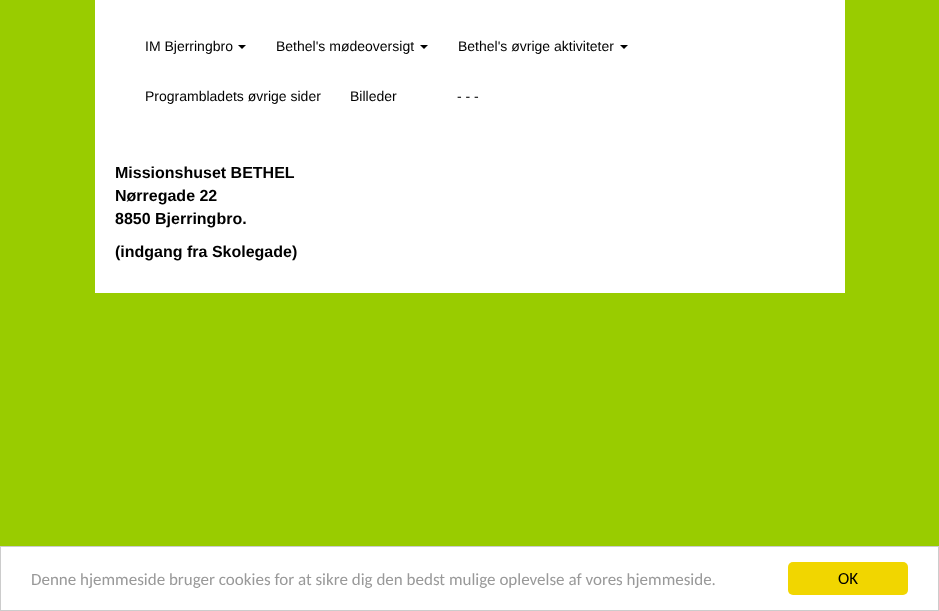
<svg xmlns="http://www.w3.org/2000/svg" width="939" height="611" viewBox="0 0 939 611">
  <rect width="100%" height="100%" fill="#99cc00"/>
  <rect x="95" y="0" width="750" height="293" fill="#ffffff"/>
  <text x="145" y="51" font-family="Liberation Sans" font-size="14" fill="#000000">IM Bjerringbro</text>
  <path d="M238 45H246L242 49Z" fill="#000000"/>
  <text x="276" y="51" font-family="Liberation Sans" font-size="14" fill="#000000">Bethel's mødeoversigt</text>
  <path d="M420 45H428L424 49Z" fill="#000000"/>
  <text x="458" y="51" font-family="Liberation Sans" font-size="14" fill="#000000">Bethel's øvrige aktiviteter</text>
  <path d="M620 45H628L624 49Z" fill="#000000"/>
  <text x="145" y="101" font-family="Liberation Sans" font-size="14" fill="#000000">Programbladets øvrige sider</text>
  <text x="350" y="101" font-family="Liberation Sans" font-size="14" fill="#000000">Billeder</text>
  <text x="457" y="101" font-family="Liberation Sans" font-size="14" fill="#000000">- - -</text>
  <text x="115" y="178" font-family="Liberation Sans" font-size="16" font-weight="bold" fill="#000000">Missionshuset BETHEL</text>
  <text x="115" y="201" font-family="Liberation Sans" font-size="16" font-weight="bold" fill="#000000">Nørregade 22</text>
  <text x="115" y="224" font-family="Liberation Sans" font-size="16" font-weight="bold" fill="#000000">8850 Bjerringbro.</text>
  <text x="115" y="257" font-family="Liberation Sans" font-size="16" font-weight="bold" fill="#000000">(indgang fra Skolegade)</text>
  <rect x="0.5" y="546.5" width="938" height="64" fill="#ffffff" stroke="#cccccc"/>
  <text x="31" y="585" font-family="Carlito" font-size="17" fill="#999999">Denne hjemmeside bruger cookies for at sikre dig den bedst mulige oplevelse af vores hjemmeside.</text>
  <rect x="788" y="562" width="120" height="33" rx="5" fill="#f1d600"/>
  <text x="838" y="584" font-family="Carlito" font-size="17" fill="#000000">OK</text>
</svg>
